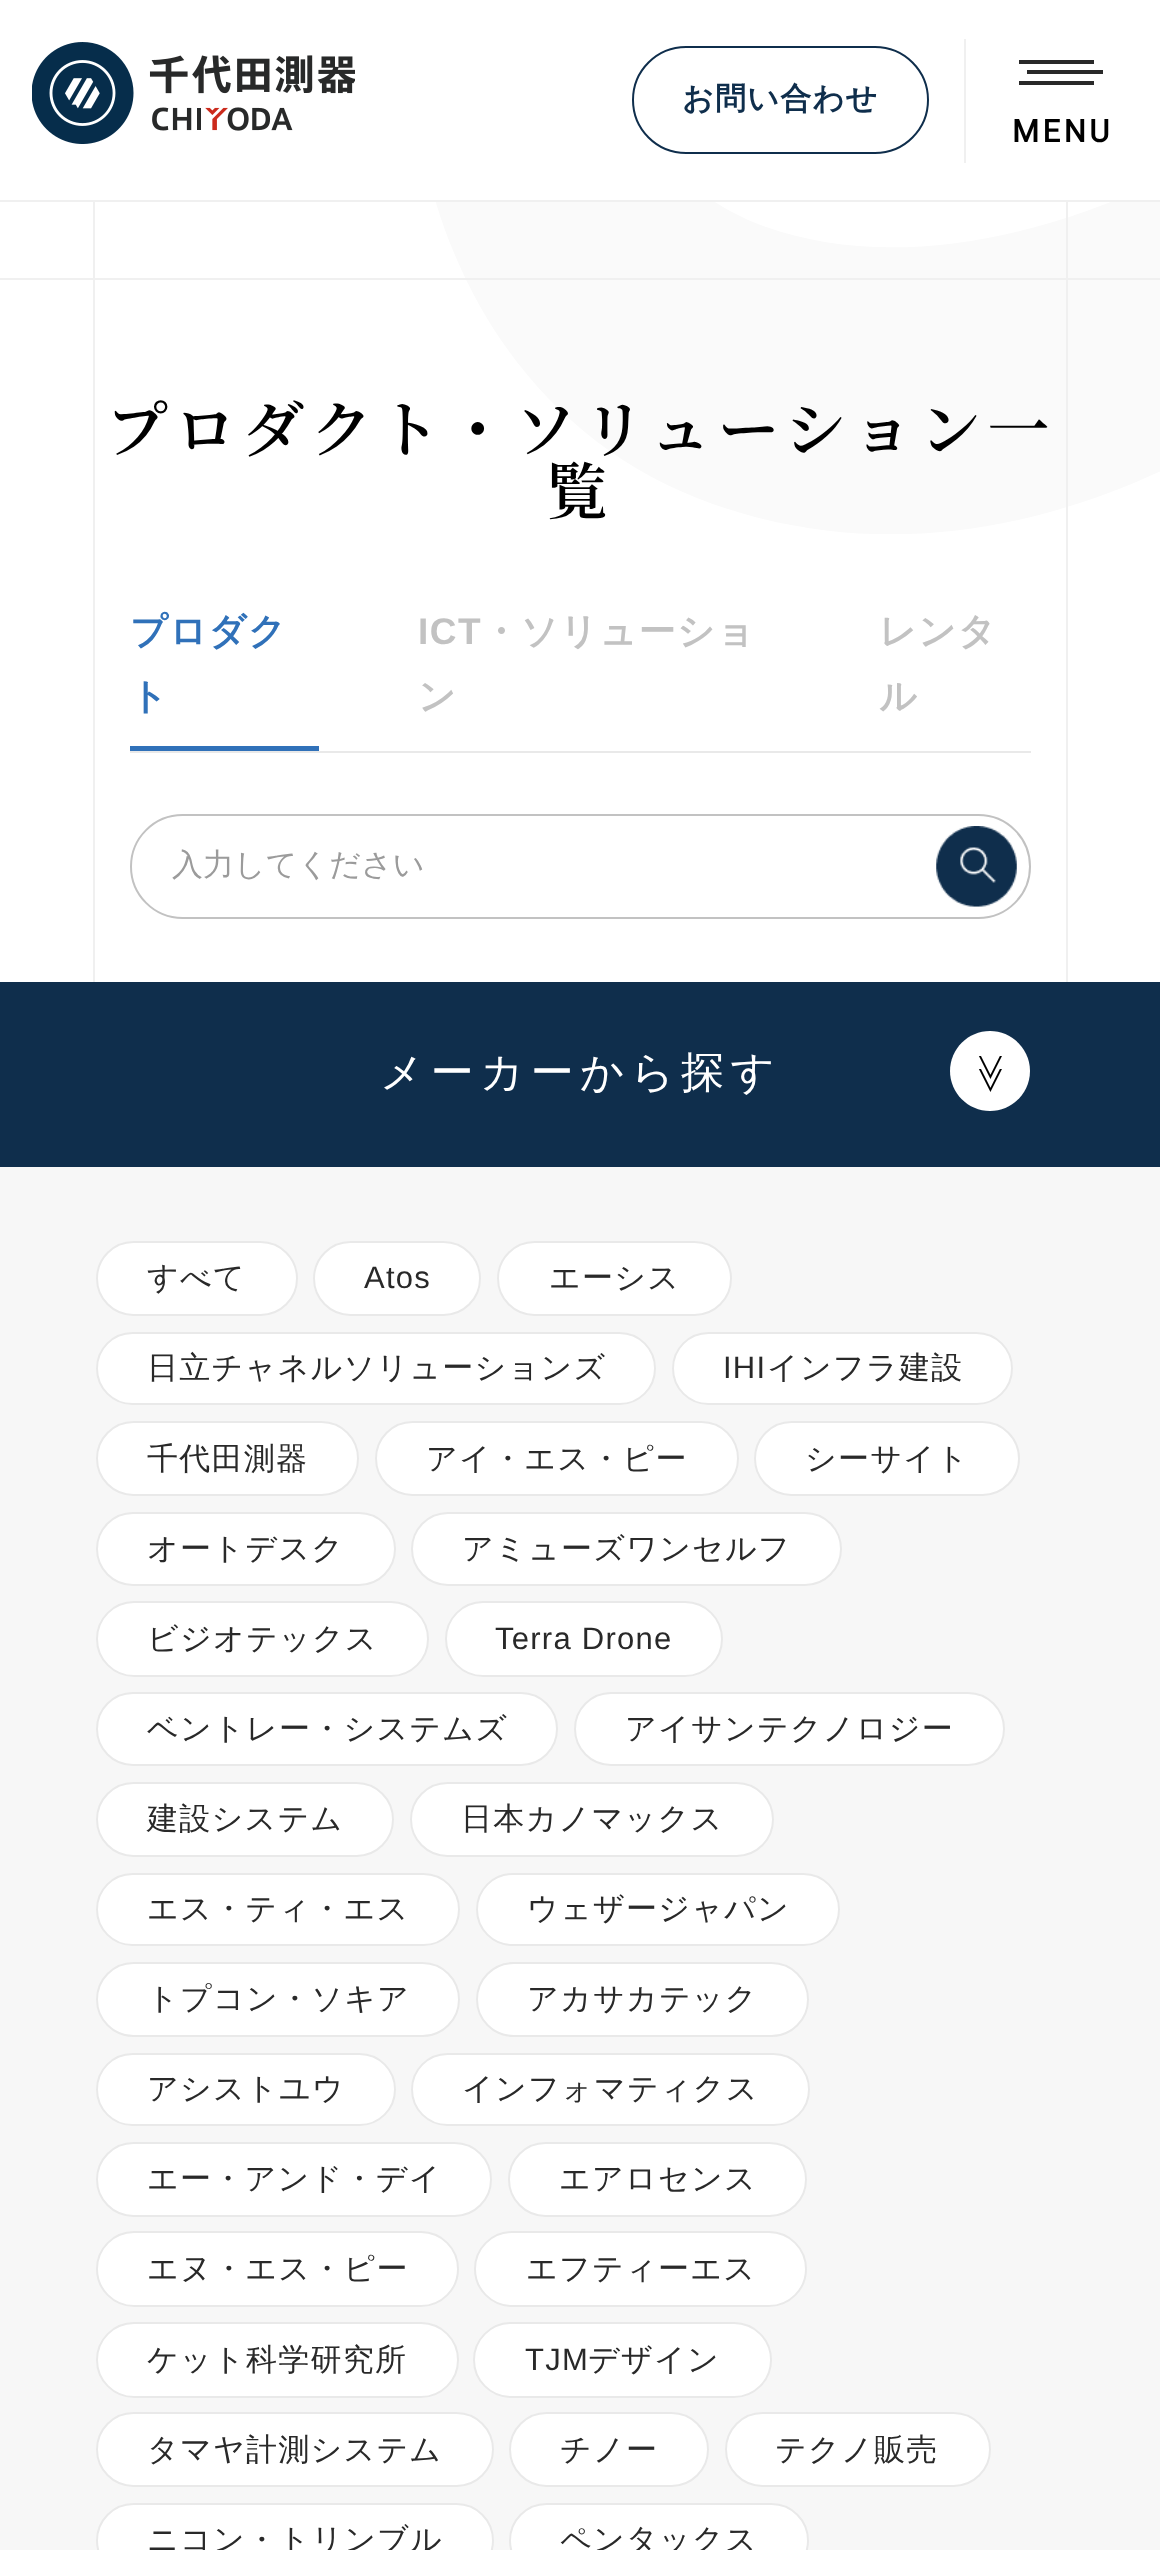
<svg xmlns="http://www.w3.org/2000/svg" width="1160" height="2550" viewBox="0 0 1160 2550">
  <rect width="100%" height="100%" fill="#ffffff"/>
  <image x="435" y="202" width="725" height="332" href="img2.png"/>
  <rect x="0" y="278" width="1160" height="2" fill="#f0f0f0"/>
  <rect x="93" y="200" width="2" height="782" fill="#f0f0f0"/>
  <rect x="1066" y="200" width="2" height="782" fill="#f0f0f0"/>
  <rect x="0" y="200" width="1160" height="2" fill="#f0f0f0"/>
  <image x="32" y="42" width="323" height="102" href="img1.png"/>
  <rect x="633" y="47" width="295" height="106" rx="53" fill="none" stroke="#0f2e4c" stroke-width="2"/>
  <text x="682" y="109" font-family="WenQuanYi Zen Hei" font-size="31" font-weight="bold" letter-spacing="1.25" fill="#0f2e4c">お問い合わせ</text>
  <rect x="964" y="39" width="2" height="124" fill="#f0f0f0"/>
  <rect x="1019" y="60" width="75" height="4" fill="#292929"/>
  <rect x="1027" y="70" width="76" height="4" fill="#292929"/>
  <rect x="1019" y="81" width="75" height="4" fill="#292929"/>
  <text x="1012" y="142" font-family="Roboto" font-size="31" font-weight="bold" letter-spacing="3.5" fill="#000000">MENU</text>
  <text x="106" y="452" font-family="Noto Serif JP" font-size="61.9" font-weight="600" letter-spacing="6.25" fill="#000000">プロダクト・ソリューション一</text>
  <text x="546" y="514" font-family="Noto Serif JP" font-size="61.9" font-weight="600" letter-spacing="6.25" fill="#000000">覧</text>
  <rect x="130" y="751" width="901" height="2" fill="#e9e9e9"/>
  <text x="130" y="644" font-family="WenQuanYi Zen Hei" font-size="37" font-weight="bold" letter-spacing="1.5" fill="#3071b9">プロダク</text>
  <text x="130" y="709" font-family="WenQuanYi Zen Hei" font-size="37" font-weight="bold" letter-spacing="1.5" fill="#3071b9">ト</text>
  <rect x="130" y="746" width="189" height="5" fill="#3071b9"/>
  <text x="418" y="644" font-family="Liberation Sans" font-size="37" font-weight="bold" letter-spacing="1.5" fill="#c2c2c2">ICT</text>
  <text x="482" y="644" font-family="WenQuanYi Zen Hei" font-size="37" font-weight="bold" letter-spacing="1.5" fill="#c2c2c2">・ソリューショ</text>
  <text x="418" y="709" font-family="WenQuanYi Zen Hei" font-size="37" font-weight="bold" letter-spacing="1.5" fill="#c2c2c2">ン</text>
  <text x="879" y="644" font-family="WenQuanYi Zen Hei" font-size="37" font-weight="bold" letter-spacing="1.5" fill="#c2c2c2">レンタ</text>
  <text x="879" y="709" font-family="WenQuanYi Zen Hei" font-size="37" font-weight="bold" letter-spacing="1.5" fill="#c2c2c2">ル</text>
  <rect x="131" y="815" width="899" height="103" rx="51.5" fill="none" stroke="#c2c2c2" stroke-width="2"/>
  <text x="172" y="875" font-family="WenQuanYi Zen Hei" font-size="31" font-weight="500" fill="#9b9b9b">入力してください</text>
  <image x="936" y="826" width="81" height="81" href="img3.png"/>
  <rect x="0" y="982" width="1160" height="185" fill="#0f2e4c"/>
  <text x="380" y="1087" font-family="WenQuanYi Zen Hei" font-size="43.25" font-weight="500" letter-spacing="6.25" fill="#ffffff">メーカーから探す</text>
  <path d="M950 1071C950 1049 968 1031 990 1031C1012 1031 1030 1049 1030 1071C1030 1093 1012 1111 990 1111C968 1111 950 1093 950 1071Z" fill="#ffffff"/>
  <text x="1002" y="1094" transform="rotate(-90 1002 1094)" font-family="WenQuanYi Zen Hei" font-size="40" font-weight="500" letter-spacing="6.25" fill="#000000">≪</text>
  <rect x="0" y="1167" width="1160" height="1383" fill="#f7f7f7"/>
  <rect x="97" y="1242" width="200" height="73" rx="36.5" fill="#ffffff" stroke="#e9e9e9" stroke-width="2"/>
  <text x="147" y="1288" font-family="WenQuanYi Zen Hei" font-size="31" font-weight="500" letter-spacing="1.25" fill="#292929">すべて</text>
  <rect x="314" y="1242" width="166" height="73" rx="36.5" fill="#ffffff" stroke="#e9e9e9" stroke-width="2"/>
  <text x="364" y="1288" font-family="Liberation Sans" font-size="31" letter-spacing="1.25" fill="#292929">Atos</text>
  <rect x="498" y="1242" width="233" height="73" rx="36.5" fill="#ffffff" stroke="#e9e9e9" stroke-width="2"/>
  <text x="549" y="1288" font-family="WenQuanYi Zen Hei" font-size="31" font-weight="500" letter-spacing="1.25" fill="#292929">エーシス</text>
  <rect x="97" y="1333" width="558" height="71" rx="35.5" fill="#ffffff" stroke="#e9e9e9" stroke-width="2"/>
  <text x="147" y="1378" font-family="WenQuanYi Zen Hei" font-size="31" font-weight="500" letter-spacing="1.25" fill="#292929">日立チャネルソリューションズ</text>
  <rect x="673" y="1333" width="339" height="71" rx="35.5" fill="#ffffff" stroke="#e9e9e9" stroke-width="2"/>
  <text x="723" y="1378" font-family="Liberation Sans" font-size="31" letter-spacing="1.25" fill="#292929">IHI</text>
  <text x="767" y="1378" font-family="WenQuanYi Zen Hei" font-size="31" font-weight="500" letter-spacing="1.25" fill="#292929">インフラ建設</text>
  <rect x="97" y="1422" width="261" height="73" rx="36.5" fill="#ffffff" stroke="#e9e9e9" stroke-width="2"/>
  <text x="147" y="1469" font-family="WenQuanYi Zen Hei" font-size="31" font-weight="500" letter-spacing="1.25" fill="#292929">千代田測器</text>
  <rect x="376" y="1422" width="362" height="73" rx="36.5" fill="#ffffff" stroke="#e9e9e9" stroke-width="2"/>
  <text x="426" y="1469" font-family="WenQuanYi Zen Hei" font-size="31" font-weight="500" letter-spacing="1.25" fill="#292929">アイ・エス・ピー</text>
  <rect x="755" y="1422" width="264" height="73" rx="36.5" fill="#ffffff" stroke="#e9e9e9" stroke-width="2"/>
  <text x="805" y="1469" font-family="WenQuanYi Zen Hei" font-size="31" font-weight="500" letter-spacing="1.25" fill="#292929">シーサイト</text>
  <rect x="97" y="1513" width="298" height="72" rx="36" fill="#ffffff" stroke="#e9e9e9" stroke-width="2"/>
  <text x="147" y="1559" font-family="WenQuanYi Zen Hei" font-size="31" font-weight="500" letter-spacing="1.25" fill="#292929">オートデスク</text>
  <rect x="412" y="1513" width="429" height="72" rx="36" fill="#ffffff" stroke="#e9e9e9" stroke-width="2"/>
  <text x="462" y="1559" font-family="WenQuanYi Zen Hei" font-size="31" font-weight="500" letter-spacing="1.25" fill="#292929">アミューズワンセルフ</text>
  <rect x="97" y="1602" width="331" height="74" rx="37" fill="#ffffff" stroke="#e9e9e9" stroke-width="2"/>
  <text x="147" y="1649" font-family="WenQuanYi Zen Hei" font-size="31" font-weight="500" letter-spacing="1.25" fill="#292929">ビジオテックス</text>
  <rect x="446" y="1602" width="276" height="74" rx="37" fill="#ffffff" stroke="#e9e9e9" stroke-width="2"/>
  <text x="495" y="1649" font-family="Liberation Sans" font-size="31" letter-spacing="1.25" fill="#292929">Terra Drone</text>
  <rect x="97" y="1693" width="460" height="72" rx="36" fill="#ffffff" stroke="#e9e9e9" stroke-width="2"/>
  <text x="147" y="1739" font-family="WenQuanYi Zen Hei" font-size="31" font-weight="500" letter-spacing="1.25" fill="#292929">ベントレー・システムズ</text>
  <rect x="575" y="1693" width="429" height="72" rx="36" fill="#ffffff" stroke="#e9e9e9" stroke-width="2"/>
  <text x="625" y="1739" font-family="WenQuanYi Zen Hei" font-size="31" font-weight="500" letter-spacing="1.25" fill="#292929">アイサンテクノロジー</text>
  <rect x="97" y="1783" width="296" height="73" rx="36.5" fill="#ffffff" stroke="#e9e9e9" stroke-width="2"/>
  <text x="147" y="1829" font-family="WenQuanYi Zen Hei" font-size="31" font-weight="500" letter-spacing="1.25" fill="#292929">建設システム</text>
  <rect x="411" y="1783" width="362" height="73" rx="36.5" fill="#ffffff" stroke="#e9e9e9" stroke-width="2"/>
  <text x="461" y="1829" font-family="WenQuanYi Zen Hei" font-size="31" font-weight="500" letter-spacing="1.25" fill="#292929">日本カノマックス</text>
  <rect x="97" y="1874" width="362" height="71" rx="35.5" fill="#ffffff" stroke="#e9e9e9" stroke-width="2"/>
  <text x="147" y="1919" font-family="WenQuanYi Zen Hei" font-size="31" font-weight="500" letter-spacing="1.25" fill="#292929">エス・ティ・エス</text>
  <rect x="477" y="1874" width="362" height="71" rx="35.5" fill="#ffffff" stroke="#e9e9e9" stroke-width="2"/>
  <text x="527" y="1919" font-family="WenQuanYi Zen Hei" font-size="31" font-weight="500" letter-spacing="1.25" fill="#292929">ウェザージャパン</text>
  <rect x="97" y="1963" width="362" height="73" rx="36.5" fill="#ffffff" stroke="#e9e9e9" stroke-width="2"/>
  <text x="147" y="2009" font-family="WenQuanYi Zen Hei" font-size="31" font-weight="500" letter-spacing="1.25" fill="#292929">トプコン・ソキア</text>
  <rect x="477" y="1963" width="331" height="73" rx="36.5" fill="#ffffff" stroke="#e9e9e9" stroke-width="2"/>
  <text x="527" y="2009" font-family="WenQuanYi Zen Hei" font-size="31" font-weight="500" letter-spacing="1.25" fill="#292929">アカサカテック</text>
  <rect x="97" y="2054" width="298" height="71" rx="35.5" fill="#ffffff" stroke="#e9e9e9" stroke-width="2"/>
  <text x="147" y="2099" font-family="WenQuanYi Zen Hei" font-size="31" font-weight="500" letter-spacing="1.25" fill="#292929">アシストユウ</text>
  <rect x="412" y="2054" width="397" height="71" rx="35.5" fill="#ffffff" stroke="#e9e9e9" stroke-width="2"/>
  <text x="462" y="2099" font-family="WenQuanYi Zen Hei" font-size="31" font-weight="500" letter-spacing="1.25" fill="#292929">インフォマティクス</text>
  <rect x="97" y="2143" width="394" height="73" rx="36.5" fill="#ffffff" stroke="#e9e9e9" stroke-width="2"/>
  <text x="147" y="2189" font-family="WenQuanYi Zen Hei" font-size="31" font-weight="500" letter-spacing="1.25" fill="#292929">エー・アンド・デイ</text>
  <rect x="509" y="2143" width="297" height="73" rx="36.5" fill="#ffffff" stroke="#e9e9e9" stroke-width="2"/>
  <text x="559" y="2189" font-family="WenQuanYi Zen Hei" font-size="31" font-weight="500" letter-spacing="1.25" fill="#292929">エアロセンス</text>
  <rect x="97" y="2232" width="361" height="74" rx="37" fill="#ffffff" stroke="#e9e9e9" stroke-width="2"/>
  <text x="147" y="2279" font-family="WenQuanYi Zen Hei" font-size="31" font-weight="500" letter-spacing="1.25" fill="#292929">エヌ・エス・ピー</text>
  <rect x="475" y="2232" width="331" height="74" rx="37" fill="#ffffff" stroke="#e9e9e9" stroke-width="2"/>
  <text x="526" y="2279" font-family="WenQuanYi Zen Hei" font-size="31" font-weight="500" letter-spacing="1.25" fill="#292929">エフティーエス</text>
  <rect x="97" y="2323" width="361" height="74" rx="37" fill="#ffffff" stroke="#e9e9e9" stroke-width="2"/>
  <text x="147" y="2370" font-family="WenQuanYi Zen Hei" font-size="31" font-weight="500" letter-spacing="1.25" fill="#292929">ケット科学研究所</text>
  <rect x="474" y="2323" width="297" height="74" rx="37" fill="#ffffff" stroke="#e9e9e9" stroke-width="2"/>
  <text x="525" y="2370" font-family="Liberation Sans" font-size="31" letter-spacing="1.25" fill="#292929">TJM</text>
  <text x="588" y="2370" font-family="WenQuanYi Zen Hei" font-size="31" font-weight="500" letter-spacing="1.25" fill="#292929">デザイン</text>
  <rect x="97" y="2413" width="396" height="73" rx="36.5" fill="#ffffff" stroke="#e9e9e9" stroke-width="2"/>
  <text x="147" y="2460" font-family="WenQuanYi Zen Hei" font-size="31" font-weight="500" letter-spacing="1.25" fill="#292929">タマヤ計測システム</text>
  <rect x="510" y="2413" width="198" height="73" rx="36.5" fill="#ffffff" stroke="#e9e9e9" stroke-width="2"/>
  <text x="560" y="2460" font-family="WenQuanYi Zen Hei" font-size="31" font-weight="500" letter-spacing="1.25" fill="#292929">チノー</text>
  <rect x="726" y="2413" width="264" height="73" rx="36.5" fill="#ffffff" stroke="#e9e9e9" stroke-width="2"/>
  <text x="775" y="2460" font-family="WenQuanYi Zen Hei" font-size="31" font-weight="500" letter-spacing="1.25" fill="#292929">テクノ販売</text>
  <rect x="97" y="2504" width="396" height="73" rx="36.5" fill="#ffffff" stroke="#e9e9e9" stroke-width="2"/>
  <text x="147" y="2550" font-family="WenQuanYi Zen Hei" font-size="31" font-weight="500" letter-spacing="1.25" fill="#292929">ニコン・トリンブル</text>
  <rect x="510" y="2504" width="298" height="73" rx="36.5" fill="#ffffff" stroke="#e9e9e9" stroke-width="2"/>
  <text x="560" y="2550" font-family="WenQuanYi Zen Hei" font-size="31" font-weight="500" letter-spacing="1.25" fill="#292929">ペンタックス</text>
</svg>
